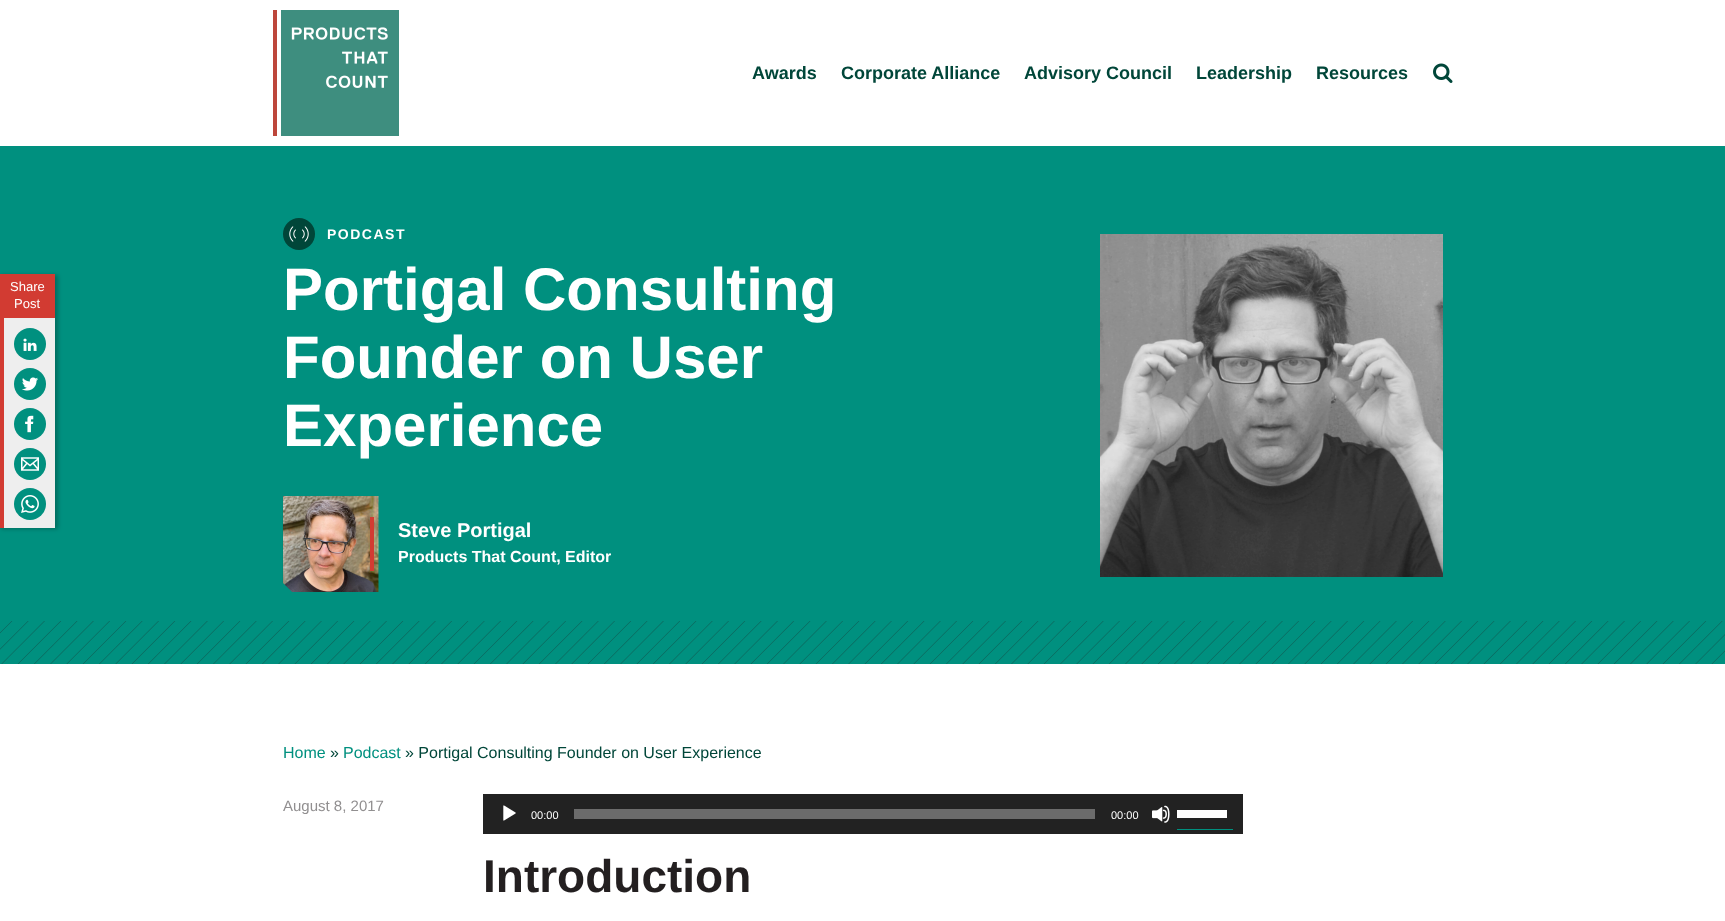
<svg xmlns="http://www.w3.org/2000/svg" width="1725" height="921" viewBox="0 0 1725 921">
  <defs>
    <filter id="blur1" x="-50%" y="-200%" width="200%" height="500%"><feGaussianBlur stdDeviation="2"/></filter>
  </defs>
  <rect width="100%" height="100%" fill="#ffffff"/>
  <image x="273" y="10" width="126" height="126" href="img1.png"/>
  <text x="752" y="79" font-family="Liberation Sans" font-size="18" font-weight="bold" fill="#004639">Awards</text>
  <text x="841" y="79" font-family="Liberation Sans" font-size="18" font-weight="bold" fill="#004639">Corporate Alliance</text>
  <text x="1024" y="79" font-family="Liberation Sans" font-size="18" font-weight="bold" fill="#004639">Advisory Council</text>
  <text x="1196" y="79" font-family="Liberation Sans" font-size="18" font-weight="bold" fill="#004639">Leadership</text>
  <text x="1316" y="79" font-family="Liberation Sans" font-size="18" font-weight="bold" fill="#004639">Resources</text>
  <image x="1433" y="63" width="20" height="20" href="img2.png"/>
  <rect x="0" y="146" width="1725" height="518" fill="#00907f"/>
  <rect x="1" y="275" width="57" height="254" fill="#000000" fill-opacity="0.25" filter="url(#blur1)"/>
  <rect x="4" y="318" width="51" height="210" fill="#eeeeee"/>
  <rect x="0" y="318" width="4" height="210" fill="#d23b32"/>
  <rect x="0" y="274" width="55" height="44" fill="#d23b32"/>
  <text x="10" y="291" font-family="Liberation Sans" font-size="13" fill="#ffffff">Share</text>
  <text x="14" y="308" font-family="Liberation Sans" font-size="13" fill="#ffffff">Post</text>
  <circle cx="30" cy="344" r="16" fill="#00907f"/>
  <image x="23" y="338" width="14" height="13" href="img3.png"/>
  <circle cx="30" cy="384" r="16" fill="#00907f"/>
  <image x="22" y="377" width="16" height="14" href="img4.png"/>
  <circle cx="30" cy="424" r="16" fill="#00907f"/>
  <image x="25" y="415" width="9" height="18" href="img5.png"/>
  <circle cx="30" cy="464" r="16" fill="#00907f"/>
  <image x="21" y="457" width="18" height="14" href="img6.png"/>
  <circle cx="30" cy="504" r="16" fill="#00907f"/>
  <image x="21" y="495" width="18" height="18" href="img7.png"/>
  <image x="0" y="621" width="1725" height="43" href="img8.png"/>
  <circle cx="299" cy="234" r="16" fill="#004639"/>
  <image x="289" y="226" width="20" height="16" href="img9.png"/>
  <text x="327" y="239" font-family="Liberation Sans" font-size="14" font-weight="bold" letter-spacing="1.5" fill="#ffffff">PODCAST</text>
  <text x="283" y="310" font-family="Liberation Sans" font-size="60" font-weight="bold" fill="#ffffff">Portigal Consulting</text>
  <text x="283" y="378" font-family="Liberation Sans" font-size="60" font-weight="bold" fill="#ffffff">Founder on User</text>
  <text x="283" y="446" font-family="Liberation Sans" font-size="60" font-weight="bold" fill="#ffffff">Experience</text>
  <image x="282" y="496" width="97" height="96" href="img10.png"/>
  <rect x="370" y="517" width="4" height="54" fill="#d23b32"/>
  <text x="398" y="537" font-family="Liberation Sans" font-size="20" font-weight="bold" fill="#ffffff">Steve Portigal</text>
  <text x="398" y="562" font-family="Liberation Sans" font-size="16" font-weight="bold" fill="#ffffff">Products That Count, Editor</text>
  <image x="1100" y="234" width="343" height="343" href="img11.png"/>
  <text x="283" y="758" font-family="Liberation Sans" font-size="16" fill="#00907f">Home</text>
  <text x="330" y="758" font-family="Liberation Sans" font-size="16" fill="#004639">»</text>
  <text x="343" y="758" font-family="Liberation Sans" font-size="16" fill="#00907f">Podcast</text>
  <text x="405" y="758" font-family="Liberation Sans" font-size="16" fill="#004639">» Portigal Consulting Founder on User Experience</text>
  <text x="283" y="811" font-family="Liberation Sans" font-size="15" fill="#918f90">August 8, 2017</text>
  <rect x="483" y="794" width="760" height="40" fill="#222222"/>
  <image x="503" y="805" width="13" height="16" href="img12.png"/>
  <text x="531" y="819" font-family="Liberation Sans" font-size="11" fill="#ffffff">00:00</text>
  <rect x="574" y="809" width="521" height="10" fill="#6b6b6b"/>
  <text x="1111" y="819" font-family="Liberation Sans" font-size="11" fill="#ffffff">00:00</text>
  <image x="1152" y="805" width="18" height="18" href="img13.png"/>
  <rect x="1177" y="829" width="56" height="1" fill="#00907f"/>
  <rect x="1177" y="810" width="50" height="8" fill="#ffffff"/>
  <text x="483" y="892" font-family="Liberation Sans" font-size="46" font-weight="bold" fill="#231f20">Introduction</text>
</svg>
